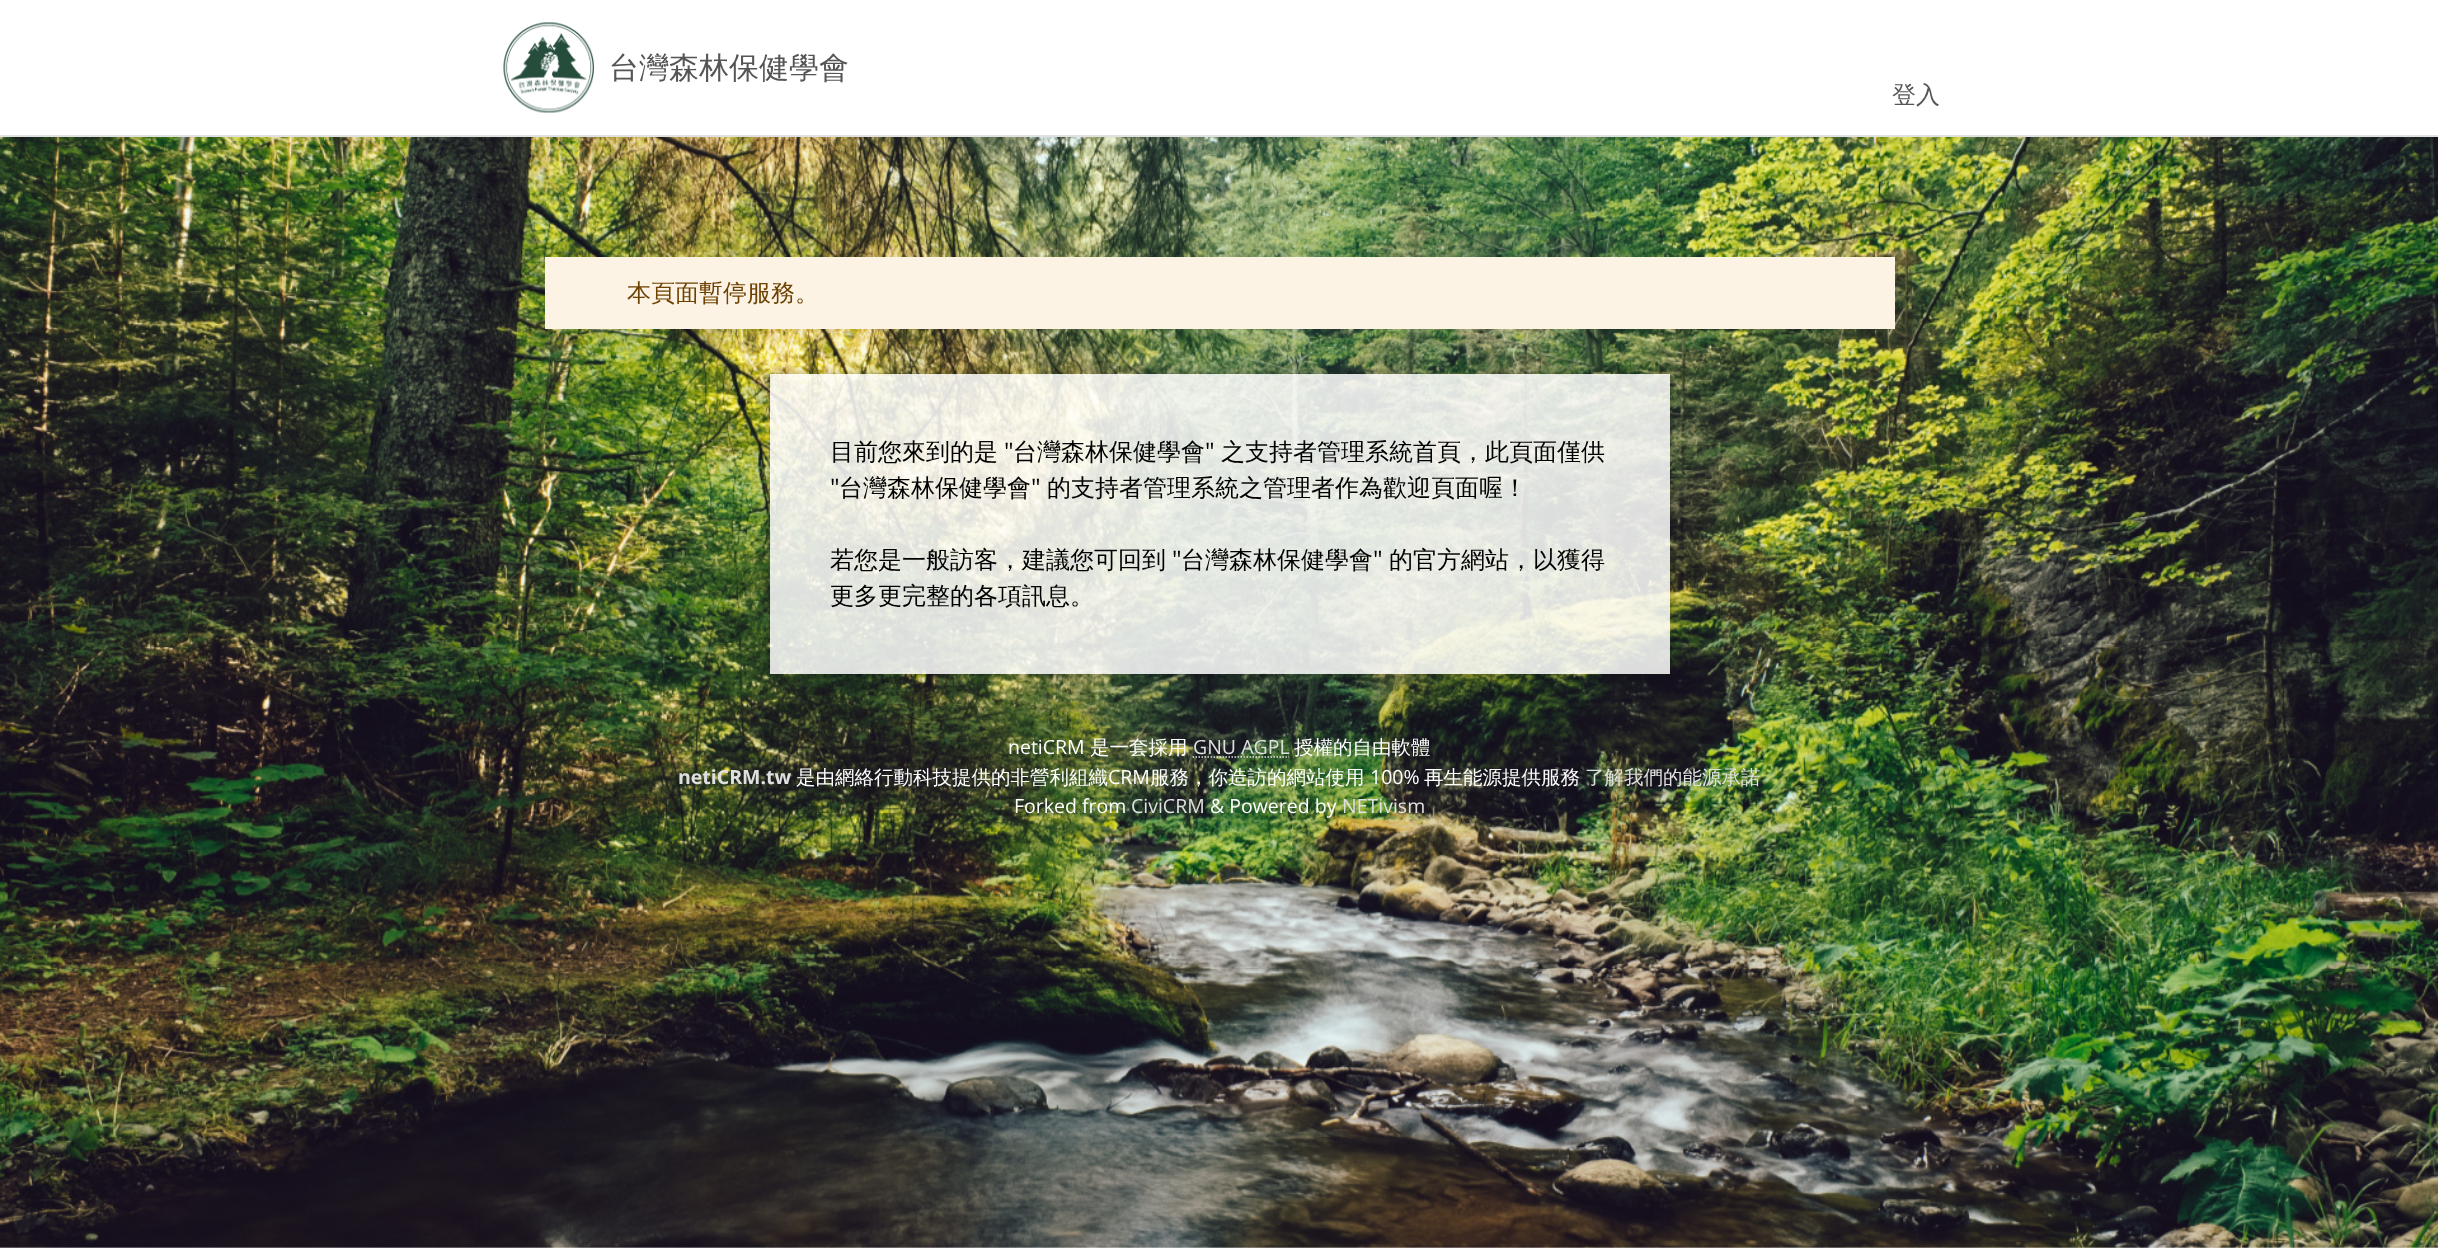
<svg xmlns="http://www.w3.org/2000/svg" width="2438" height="1248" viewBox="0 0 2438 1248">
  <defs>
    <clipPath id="clip1"><path d="M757 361H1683V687H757ZM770 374H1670V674H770Z" clip-rule="evenodd"/></clipPath>
    <filter id="blur1" x="-50%" y="-200%" width="200%" height="500%"><feGaussianBlur stdDeviation="4"/></filter>
  </defs>
  <rect width="100%" height="100%" fill="#ffffff"/>
  <image x="0" y="137" width="2438" height="1111" href="img1.png"/>
  <rect x="0" y="135" width="2438" height="2" fill="#e0e0e0"/>
  <image x="503" y="22" width="91" height="91" href="img2.png"/>
  <text x="609" y="78" font-family="WenQuanYi Zen Hei" font-size="30" font-weight="500" fill="#555555">台灣森林保健學會</text>
  <text x="1892" y="103" font-family="WenQuanYi Zen Hei" font-size="24" font-weight="500" fill="#555555">登入</text>
  <rect x="545" y="257" width="1350" height="72" fill="#fdf3e5"/>
  <text x="627" y="301" font-family="WenQuanYi Zen Hei" font-size="24" font-weight="500" fill="#6e4100">本頁面暫停服務。</text>
  <g clip-path="url(#clip1)">
    <rect x="770" y="374" width="900" height="300" fill="#000000" fill-opacity="0.3" filter="url(#blur1)"/>
  </g>
  <rect x="770" y="374" width="900" height="300" fill="#ffffff" fill-opacity="0.85"/>
  <text x="830" y="460" font-family="WenQuanYi Zen Hei" font-size="24" font-weight="500" fill="#000000">目前您來到的是</text>
  <text x="1004" y="460" font-family="Open Sans" font-size="24" fill="#000000">"</text>
  <text x="1013" y="460" font-family="WenQuanYi Zen Hei" font-size="24" font-weight="500" fill="#000000">台灣森林保健學會</text>
  <text x="1205" y="460" font-family="Open Sans" font-size="24" fill="#000000">"</text>
  <text x="1221" y="460" font-family="WenQuanYi Zen Hei" font-size="24" font-weight="500" fill="#000000">之支持者管理系統首頁，此頁面僅供</text>
  <text x="830" y="496" font-family="Open Sans" font-size="24" fill="#000000">"</text>
  <text x="839" y="496" font-family="WenQuanYi Zen Hei" font-size="24" font-weight="500" fill="#000000">台灣森林保健學會</text>
  <text x="1031" y="496" font-family="Open Sans" font-size="24" fill="#000000">"</text>
  <text x="1047" y="496" font-family="WenQuanYi Zen Hei" font-size="24" font-weight="500" fill="#000000">的支持者管理系統之管理者作為歡迎頁面喔！</text>
  <text x="830" y="568" font-family="WenQuanYi Zen Hei" font-size="24" font-weight="500" fill="#000000">若您是一般訪客，建議您可回到</text>
  <text x="1172" y="568" font-family="Open Sans" font-size="24" fill="#000000">"</text>
  <text x="1181" y="568" font-family="WenQuanYi Zen Hei" font-size="24" font-weight="500" fill="#000000">台灣森林保健學會</text>
  <text x="1373" y="568" font-family="Open Sans" font-size="24" fill="#000000">"</text>
  <text x="1389" y="568" font-family="WenQuanYi Zen Hei" font-size="24" font-weight="500" fill="#000000">的官方網站，以獲得</text>
  <text x="830" y="604" font-family="WenQuanYi Zen Hei" font-size="24" font-weight="500" fill="#000000">更多更完整的各項訊息。</text>
  <text x="1008" y="754" font-family="Open Sans" font-size="19.5" fill="#ffffff">netiCRM</text>
  <text x="1090" y="754" font-family="WenQuanYi Zen Hei" font-size="19.5" font-weight="500" fill="#ffffff">是一套採用</text>
  <text x="1193" y="754" font-family="Open Sans" font-size="19.5" fill="#e0e0e0">GNU AGPL</text>
  <path d="M1192.5 757H1289" fill="none" stroke="#e0e0e0" stroke-width="1.5" stroke-dasharray="1.5 1.5"/>
  <text x="1294" y="754" font-family="WenQuanYi Zen Hei" font-size="19.5" font-weight="500" fill="#ffffff">授權的自由軟體</text>
  <text x="678" y="784" font-family="Open Sans" font-size="19.5" font-weight="bold" fill="#e0e0e0">netiCRM.tw</text>
  <text x="796" y="784" font-family="WenQuanYi Zen Hei" font-size="19.5" font-weight="500" fill="#ffffff">是由網絡行動科技提供的非營利組織</text>
  <text x="1108" y="784" font-family="Open Sans" font-size="19.5" fill="#ffffff">CRM</text>
  <text x="1150" y="784" font-family="WenQuanYi Zen Hei" font-size="19.5" font-weight="500" fill="#ffffff">服務，你造訪的網站使用</text>
  <text x="1370" y="784" font-family="Open Sans" font-size="19.5" fill="#ffffff">100%</text>
  <text x="1424" y="784" font-family="WenQuanYi Zen Hei" font-size="19.5" font-weight="500" fill="#ffffff">再生能源提供服務</text>
  <text x="1585" y="784" font-family="WenQuanYi Zen Hei" font-size="19.5" font-weight="500" fill="#e0e0e0">了解我們的能源承諾</text>
  <text x="1014" y="813" font-family="Open Sans" font-size="19.5" fill="#ffffff">Forked from</text>
  <text x="1131" y="813" font-family="Open Sans" font-size="19.5" fill="#e0e0e0">CiviCRM</text>
  <text x="1210" y="813" font-family="Open Sans" font-size="19.5" fill="#ffffff">&amp; Powered by</text>
  <text x="1342" y="813" font-family="Open Sans" font-size="19.5" fill="#e0e0e0">NETivism</text>
</svg>
